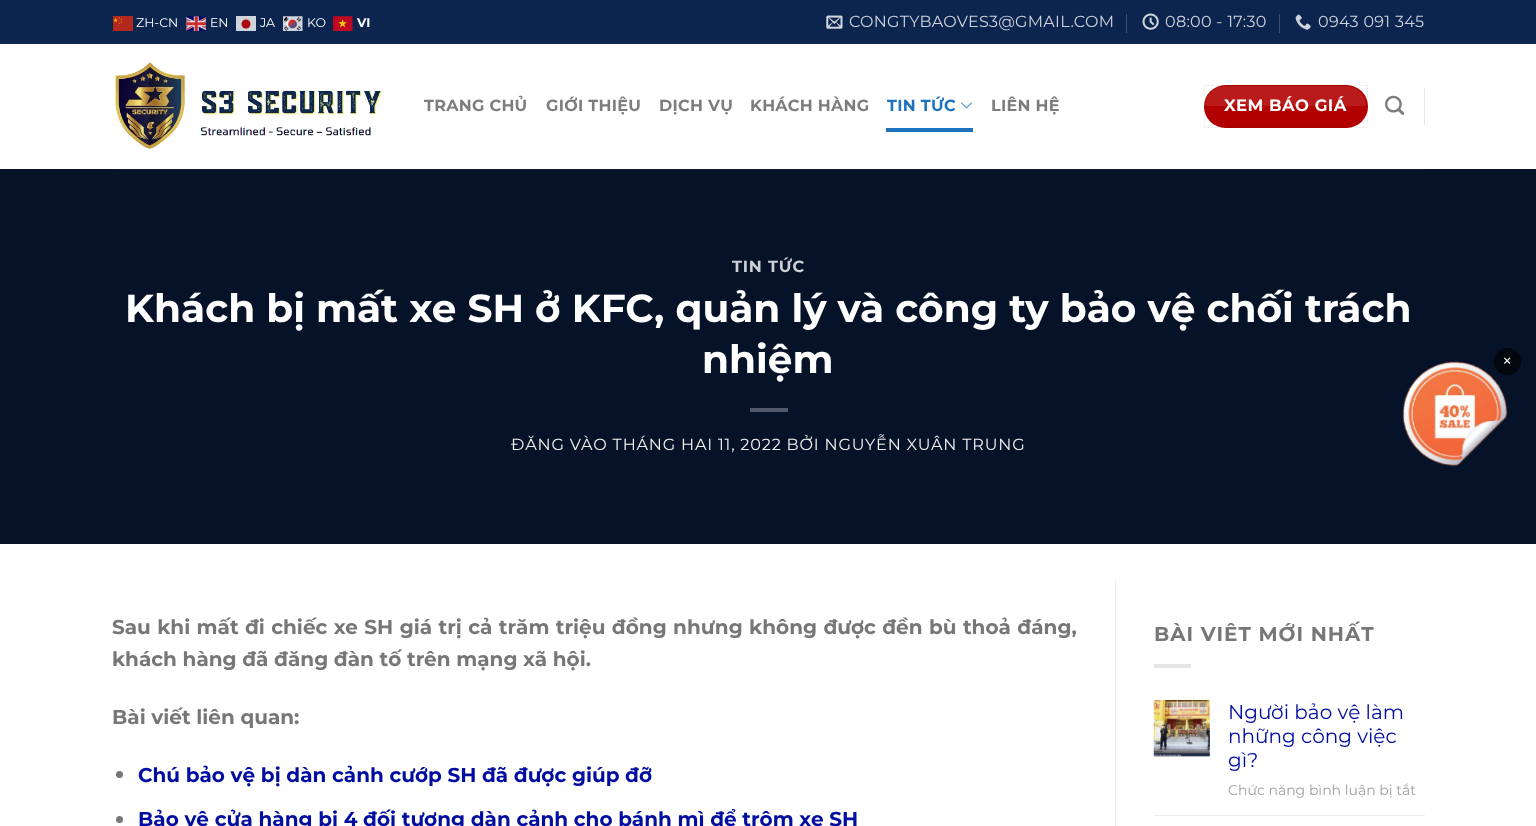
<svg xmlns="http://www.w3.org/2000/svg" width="1536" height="826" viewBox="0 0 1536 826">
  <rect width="100%" height="100%" fill="#ffffff"/>
  <rect x="0" y="0" width="1536" height="44" fill="#0b254f"/>
  <image x="113" y="16" width="20" height="15" href="img1.png"/>
  <text x="136" y="27" font-family="Montserrat" font-size="12.5" fill="#ffffff">ZH-CN</text>
  <image x="186" y="16" width="20" height="15" href="img2.png"/>
  <text x="210" y="27" font-family="Montserrat" font-size="12.5" fill="#ffffff">EN</text>
  <text x="260" y="27" font-family="Montserrat" font-size="12.5" fill="#ffffff">JA</text>
  <rect x="236" y="16" width="20" height="15" fill="#ced3dc"/>
  <circle cx="246" cy="24" r="4.5" fill="#ab0710"/>
  <image x="283" y="16" width="20" height="15" href="img3.png"/>
  <text x="307" y="27" font-family="Montserrat" font-size="12.5" fill="#ffffff">KO</text>
  <image x="333" y="16" width="20" height="15" href="img4.png"/>
  <text x="357" y="27" font-family="Montserrat" font-size="12.5" font-weight="bold" fill="#ffffff">VI</text>
  <image x="826" y="15" width="17" height="14" href="img5.png"/>
  <text x="849" y="27" font-family="Montserrat" font-size="16" letter-spacing="0.3" fill="#ced3dc">CONGTYBAOVES3@GMAIL.COM</text>
  <rect x="1126" y="14" width="1" height="19" fill="#3c5172"/>
  <image x="1142" y="13" width="17" height="17" href="img6.png"/>
  <text x="1165" y="27" font-family="Montserrat" font-size="16" letter-spacing="0.3" fill="#ced3dc">08:00 - 17:30</text>
  <rect x="1279" y="14" width="1" height="19" fill="#3c5172"/>
  <image x="1295" y="14" width="16" height="16" href="img7.png"/>
  <text x="1318" y="27" font-family="Montserrat" font-size="16" letter-spacing="0.3" fill="#ced3dc">0943 091 345</text>
  <image x="115" y="62" width="268" height="87" href="img8.png"/>
  <text x="424" y="111" font-family="Montserrat" font-size="16" font-weight="bold" letter-spacing="0.3" fill="#7d7d7d">TRANG CHỦ</text>
  <text x="546" y="111" font-family="Montserrat" font-size="16" font-weight="bold" letter-spacing="0.3" fill="#7d7d7d">GIỚI THIỆU</text>
  <text x="659" y="111" font-family="Montserrat" font-size="16" font-weight="bold" letter-spacing="0.3" fill="#7d7d7d">DỊCH VỤ</text>
  <text x="750" y="111" font-family="Montserrat" font-size="16" font-weight="bold" letter-spacing="0.3" fill="#7d7d7d">KHÁCH HÀNG</text>
  <text x="887" y="111" font-family="Montserrat" font-size="16" font-weight="bold" letter-spacing="0.3" fill="#1e73be">TIN TỨC</text>
  <image x="960" y="102" width="12" height="7" href="img9.png"/>
  <rect x="886" y="128" width="87" height="4" fill="#1e73be"/>
  <text x="991" y="111" font-family="Montserrat" font-size="16" font-weight="bold" letter-spacing="0.3" fill="#7d7d7d">LIÊN HỆ</text>
  <rect x="1204" y="85" width="164" height="43" rx="21.5" fill="#b20000"/>
  <rect x="1204.5" y="85.5" width="163" height="42" fill="none" stroke="#000000" stroke-opacity="0.05"/>
  <path d="M1225 86H1346C1357 86 1366 95 1366 106H1205C1205 95 1214 86 1225 86Z" fill="#ffffff" fill-opacity="0.1"/>
  <text x="1224" y="111" font-family="Montserrat" font-size="16.5" font-weight="bold" letter-spacing="0.5" fill="#ffffff">XEM BÁO GIÁ</text>
  <image x="1385" y="95" width="20" height="20" href="img10.png"/>
  <rect x="1424" y="88" width="1" height="37" fill="#e6e6e6"/>
  <rect x="0" y="169" width="1536" height="375" fill="#061228"/>
  <rect x="113" y="169" width="1312" height="1" fill="#111b2d"/>
  <text x="732" y="272" font-family="Montserrat" font-size="16.1" font-weight="bold" letter-spacing="0.8" fill="#cdd0d4">TIN TỨC</text>
  <text x="125" y="322" font-family="Montserrat" font-size="39.1" font-weight="bold" fill="#ffffff">Khách bị mất xe SH ở KFC, quản lý và công ty bảo vệ chối trách</text>
  <text x="702" y="373" font-family="Montserrat" font-size="39.1" font-weight="bold" fill="#ffffff">nhiệm</text>
  <rect x="750" y="408" width="38" height="4" fill="#515969"/>
  <text x="511" y="450" font-family="Montserrat" font-size="16.1" letter-spacing="0.8" fill="#f1f1f1">ĐĂNG VÀO THÁNG HAI 11, 2022 BỞI NGUYỄN XUÂN TRUNG</text>
  <image x="1402" y="361" width="106" height="106" href="img11.png"/>
  <circle cx="1507.5" cy="361.5" r="13.5" fill="#02060d"/>
  <text x="1502" y="367" font-family="Montserrat" font-size="18" fill="#ffffff">×</text>
  <text x="112" y="634" word-spacing="0.75" font-family="Montserrat" font-size="20" font-weight="bold" fill="#777777">Sau khi mất đi chiếc xe SH giá trị cả trăm triệu đồng nhưng không được đền bù thoả đáng,</text>
  <text x="112" y="666" font-family="Montserrat" font-size="20" font-weight="bold" fill="#777777">khách hàng đã đăng đàn tố trên mạng xã hội.</text>
  <text x="112" y="724" font-family="Montserrat" font-size="20" font-weight="bold" fill="#777777">Bài viết liên quan:</text>
  <circle cx="119.5" cy="774.5" r="3.5" fill="#777777"/>
  <text x="138" y="782" font-family="Montserrat" font-size="20" font-weight="bold" fill="#000da0">Chú bảo vệ bị dàn cảnh cướp SH đã được giúp đỡ</text>
  <circle cx="119.5" cy="819.5" r="3.5" fill="#777777"/>
  <text x="138" y="826" font-family="Montserrat" font-size="20" font-weight="bold" fill="#000da0">Bảo vệ cửa hàng bị 4 đối tượng dàn cảnh cho bánh mì để trộm xe SH</text>
  <rect x="1115" y="581" width="1" height="245" fill="#ececec"/>
  <text x="1154" y="641" font-family="Montserrat" font-size="20" font-weight="bold" letter-spacing="1" fill="#777777">BÀI VIÊT MỚI NHẤT</text>
  <rect x="1154" y="664" width="37" height="4" fill="#e6e6e6"/>
  <image x="1153" y="700" width="57" height="57" href="img12.png"/>
  <text x="1228" y="719" font-family="Montserrat" font-size="20" fill="#000da0">Người bảo vệ làm</text>
  <text x="1228" y="743" font-family="Montserrat" font-size="20" fill="#000da0">những công việc</text>
  <text x="1228" y="767" font-family="Montserrat" font-size="20" fill="#000da0">gì?</text>
  <text x="1228" y="795" font-family="Montserrat" font-size="14" fill="#a0a0a0">Chức năng bình luận bị tắt</text>
  <rect x="1154" y="815" width="271" height="1" fill="#ececec"/>
</svg>
